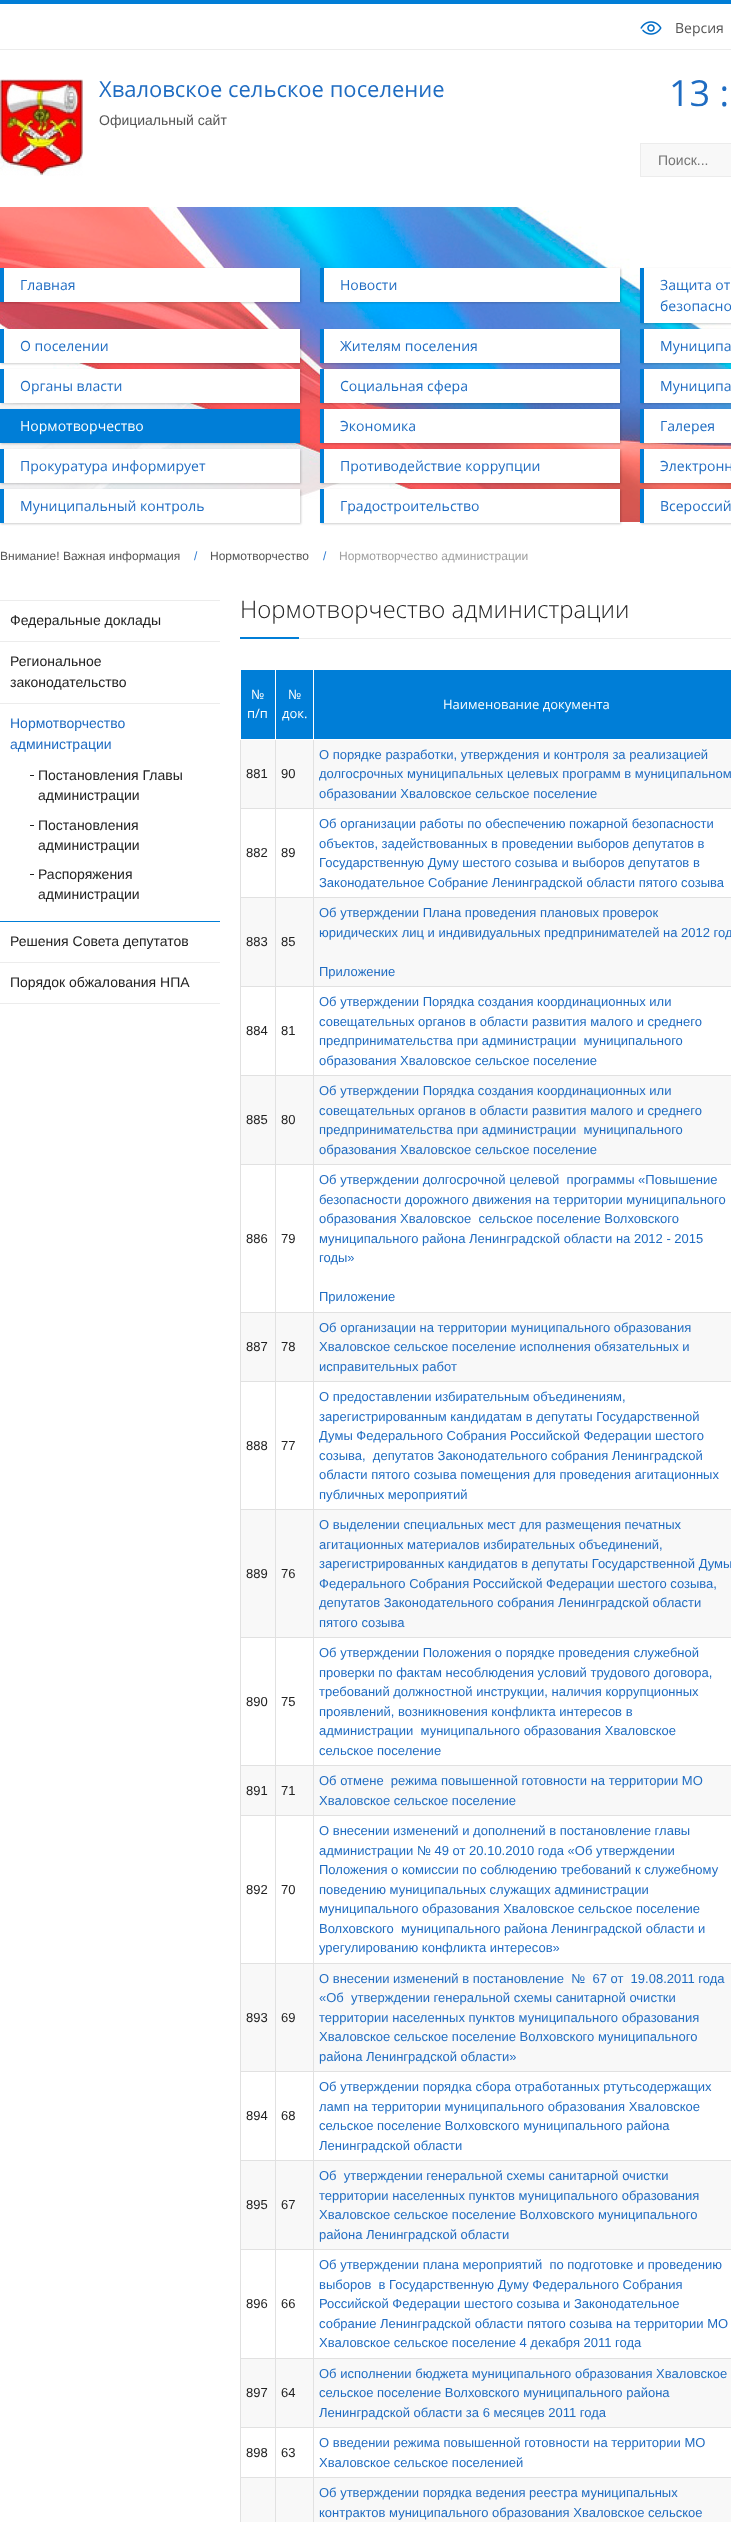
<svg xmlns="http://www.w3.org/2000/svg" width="731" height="2522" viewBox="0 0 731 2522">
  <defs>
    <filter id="blur1" x="-50%" y="-200%" width="200%" height="500%"><feGaussianBlur stdDeviation="1"/></filter>
  </defs>
  <rect width="100%" height="100%" fill="#ffffff"/>
  <rect x="0" y="0" width="731" height="4" fill="#007ed7"/>
  <rect x="0" y="49" width="731" height="1" fill="#ececec"/>
  <image x="640" y="21" width="22" height="14" href="img1.png"/>
  <text x="675" y="33" font-family="Open Sans" font-size="14" fill="#555555">Версия</text>
  <image x="0" y="79" width="83" height="97" href="img2.png"/>
  <text x="99" y="97" font-family="Open Sans" font-size="22" fill="#1f6cc2">Хваловское сельское поселение</text>
  <text x="99" y="125" font-family="Liberation Sans" font-size="14" fill="#555555">Официальный сайт</text>
  <text x="669" y="106" font-family="Open Sans" font-size="36" fill="#1f6cc2">13 :</text>
  <rect x="640.5" y="143.5" width="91" height="33" fill="#f8f8f8" stroke="#ececec"/>
  <text x="658" y="165" font-family="Liberation Sans" font-size="14" fill="#757575">Поиск...</text>
  <image x="0" y="207" width="731" height="315" href="img3.png"/>
  <rect x="1" y="269" width="300" height="34" fill="#000000" fill-opacity="0.2" filter="url(#blur1)"/>
  <rect x="4" y="268" width="296" height="34" fill="#ffffff"/>
  <rect x="0" y="268" width="4" height="34" fill="#007ed7"/>
  <text x="20" y="290" font-family="Open Sans" font-size="14" fill="#1f6cc2">Главная</text>
  <rect x="321" y="269" width="300" height="34" fill="#000000" fill-opacity="0.2" filter="url(#blur1)"/>
  <rect x="324" y="268" width="296" height="34" fill="#ffffff"/>
  <rect x="320" y="268" width="4" height="34" fill="#007ed7"/>
  <text x="340" y="290" font-family="Open Sans" font-size="14" fill="#1f6cc2">Новости</text>
  <rect x="641" y="269" width="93" height="55" fill="#000000" fill-opacity="0.2" filter="url(#blur1)"/>
  <rect x="644" y="268" width="87" height="55" fill="#ffffff"/>
  <rect x="640" y="268" width="4" height="55" fill="#007ed7"/>
  <text x="660" y="290" font-family="Open Sans" font-size="14" fill="#1f6cc2">Защита от</text>
  <text x="660" y="311" font-family="Open Sans" font-size="14" fill="#1f6cc2">безопасно</text>
  <rect x="1" y="330" width="300" height="34" fill="#000000" fill-opacity="0.2" filter="url(#blur1)"/>
  <rect x="4" y="329" width="296" height="34" fill="#ffffff"/>
  <rect x="0" y="329" width="4" height="34" fill="#007ed7"/>
  <text x="20" y="351" font-family="Open Sans" font-size="14" fill="#1f6cc2">О поселении</text>
  <rect x="321" y="330" width="300" height="34" fill="#000000" fill-opacity="0.2" filter="url(#blur1)"/>
  <rect x="324" y="329" width="296" height="34" fill="#ffffff"/>
  <rect x="320" y="329" width="4" height="34" fill="#007ed7"/>
  <text x="340" y="351" font-family="Open Sans" font-size="14" fill="#1f6cc2">Жителям поселения</text>
  <rect x="641" y="330" width="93" height="34" fill="#000000" fill-opacity="0.2" filter="url(#blur1)"/>
  <rect x="644" y="329" width="87" height="34" fill="#ffffff"/>
  <rect x="640" y="329" width="4" height="34" fill="#007ed7"/>
  <text x="660" y="351" font-family="Open Sans" font-size="14" fill="#1f6cc2">Муниципа</text>
  <rect x="1" y="370" width="300" height="34" fill="#000000" fill-opacity="0.2" filter="url(#blur1)"/>
  <rect x="4" y="369" width="296" height="34" fill="#ffffff"/>
  <rect x="0" y="369" width="4" height="34" fill="#007ed7"/>
  <text x="20" y="391" font-family="Open Sans" font-size="14" fill="#1f6cc2">Органы власти</text>
  <rect x="321" y="370" width="300" height="34" fill="#000000" fill-opacity="0.2" filter="url(#blur1)"/>
  <rect x="324" y="369" width="296" height="34" fill="#ffffff"/>
  <rect x="320" y="369" width="4" height="34" fill="#007ed7"/>
  <text x="340" y="391" font-family="Open Sans" font-size="14" fill="#1f6cc2">Социальная сфера</text>
  <rect x="641" y="370" width="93" height="34" fill="#000000" fill-opacity="0.2" filter="url(#blur1)"/>
  <rect x="644" y="369" width="87" height="34" fill="#ffffff"/>
  <rect x="640" y="369" width="4" height="34" fill="#007ed7"/>
  <text x="660" y="391" font-family="Open Sans" font-size="14" fill="#1f6cc2">Муниципа</text>
  <rect x="1" y="410" width="300" height="34" fill="#000000" fill-opacity="0.2" filter="url(#blur1)"/>
  <rect x="0" y="409" width="300" height="34" fill="#007ed7"/>
  <text x="20" y="431" font-family="Open Sans" font-size="14" fill="#ffffff">Нормотворчество</text>
  <rect x="321" y="410" width="300" height="34" fill="#000000" fill-opacity="0.2" filter="url(#blur1)"/>
  <rect x="324" y="409" width="296" height="34" fill="#ffffff"/>
  <rect x="320" y="409" width="4" height="34" fill="#007ed7"/>
  <text x="340" y="431" font-family="Open Sans" font-size="14" fill="#1f6cc2">Экономика</text>
  <rect x="641" y="410" width="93" height="34" fill="#000000" fill-opacity="0.2" filter="url(#blur1)"/>
  <rect x="644" y="409" width="87" height="34" fill="#ffffff"/>
  <rect x="640" y="409" width="4" height="34" fill="#007ed7"/>
  <text x="660" y="431" font-family="Open Sans" font-size="14" fill="#1f6cc2">Галерея</text>
  <rect x="1" y="450" width="300" height="34" fill="#000000" fill-opacity="0.2" filter="url(#blur1)"/>
  <rect x="4" y="449" width="296" height="34" fill="#ffffff"/>
  <rect x="0" y="449" width="4" height="34" fill="#007ed7"/>
  <text x="20" y="471" font-family="Open Sans" font-size="14" fill="#1f6cc2">Прокуратура информирует</text>
  <rect x="321" y="450" width="300" height="34" fill="#000000" fill-opacity="0.2" filter="url(#blur1)"/>
  <rect x="324" y="449" width="296" height="34" fill="#ffffff"/>
  <rect x="320" y="449" width="4" height="34" fill="#007ed7"/>
  <text x="340" y="471" font-family="Open Sans" font-size="14" fill="#1f6cc2">Противодействие коррупции</text>
  <rect x="641" y="450" width="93" height="34" fill="#000000" fill-opacity="0.2" filter="url(#blur1)"/>
  <rect x="644" y="449" width="87" height="34" fill="#ffffff"/>
  <rect x="640" y="449" width="4" height="34" fill="#007ed7"/>
  <text x="660" y="471" font-family="Open Sans" font-size="14" fill="#1f6cc2">Электронн</text>
  <rect x="1" y="490" width="300" height="34" fill="#000000" fill-opacity="0.2" filter="url(#blur1)"/>
  <rect x="4" y="489" width="296" height="34" fill="#ffffff"/>
  <rect x="0" y="489" width="4" height="34" fill="#007ed7"/>
  <text x="20" y="511" font-family="Open Sans" font-size="14" fill="#1f6cc2">Муниципальный контроль</text>
  <rect x="321" y="490" width="300" height="34" fill="#000000" fill-opacity="0.2" filter="url(#blur1)"/>
  <rect x="324" y="489" width="296" height="34" fill="#ffffff"/>
  <rect x="320" y="489" width="4" height="34" fill="#007ed7"/>
  <text x="340" y="511" font-family="Open Sans" font-size="14" fill="#1f6cc2">Градостроительство</text>
  <rect x="641" y="490" width="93" height="34" fill="#000000" fill-opacity="0.2" filter="url(#blur1)"/>
  <rect x="644" y="489" width="87" height="34" fill="#ffffff"/>
  <rect x="640" y="489" width="4" height="34" fill="#007ed7"/>
  <text x="660" y="511" font-family="Open Sans" font-size="14" fill="#1f6cc2">Всероссий</text>
  <text x="0" y="560" font-family="Liberation Sans" font-size="12" fill="#555555">Внимание! Важная информация</text>
  <text x="194" y="560" font-family="Liberation Sans" font-size="12" fill="#317dd3">/</text>
  <text x="210" y="560" font-family="Liberation Sans" font-size="12" fill="#555555">Нормотворчество</text>
  <text x="323" y="560" font-family="Liberation Sans" font-size="12" fill="#317dd3">/</text>
  <text x="339" y="560" font-family="Liberation Sans" font-size="12" fill="#9f9f9f">Нормотворчество администрации</text>
  <rect x="0" y="600" width="220" height="1" fill="#ececec"/>
  <rect x="0" y="641" width="220" height="1" fill="#ececec"/>
  <text x="10" y="625" font-family="Liberation Sans" font-size="14" fill="#222222">Федеральные доклады</text>
  <rect x="0" y="703" width="220" height="1" fill="#ececec"/>
  <text x="10" y="666" font-family="Liberation Sans" font-size="14" fill="#222222">Региональное</text>
  <text x="10" y="687" font-family="Liberation Sans" font-size="14" fill="#222222">законодательство</text>
  <rect x="0" y="921" width="220" height="1" fill="#007ed7"/>
  <text x="10" y="728" font-family="Liberation Sans" font-size="14" fill="#1f6cc2">Нормотворчество</text>
  <text x="10" y="749" font-family="Liberation Sans" font-size="14" fill="#1f6cc2">администрации</text>
  <rect x="30" y="775" width="4" height="1" fill="#222222"/>
  <text x="38" y="780" font-family="Liberation Sans" font-size="14" fill="#222222">Постановления Главы</text>
  <text x="38" y="800" font-family="Liberation Sans" font-size="14" fill="#222222">администрации</text>
  <rect x="30" y="825" width="4" height="1" fill="#222222"/>
  <text x="38" y="830" font-family="Liberation Sans" font-size="14" fill="#222222">Постановления</text>
  <text x="38" y="850" font-family="Liberation Sans" font-size="14" fill="#222222">администрации</text>
  <rect x="30" y="874" width="4" height="1" fill="#222222"/>
  <text x="38" y="879" font-family="Liberation Sans" font-size="14" fill="#222222">Распоряжения</text>
  <text x="38" y="899" font-family="Liberation Sans" font-size="14" fill="#222222">администрации</text>
  <rect x="0" y="962" width="220" height="1" fill="#ececec"/>
  <text x="10" y="946" font-family="Liberation Sans" font-size="14" fill="#222222">Решения Совета депутатов</text>
  <rect x="0" y="1003" width="220" height="1" fill="#ececec"/>
  <text x="10" y="987" font-family="Liberation Sans" font-size="14" fill="#222222">Порядок обжалования НПА</text>
  <rect x="299" y="638" width="432" height="1" fill="#ececec"/>
  <text x="240" y="618" font-family="Open Sans" font-size="24" font-weight="300" fill="#222222">Нормотворчество администрации</text>
  <rect x="240" y="637" width="59" height="2" fill="#007ed7"/>
  <rect x="241" y="670" width="34" height="69" fill="#007ed7"/>
  <rect x="313" y="808" width="418" height="1" fill="#e1e1e1"/>
  <rect x="313" y="897" width="418" height="1" fill="#e1e1e1"/>
  <rect x="313" y="986" width="418" height="1" fill="#e1e1e1"/>
  <rect x="313" y="1075" width="418" height="1" fill="#e1e1e1"/>
  <rect x="313" y="1164" width="418" height="1" fill="#e1e1e1"/>
  <rect x="313" y="1312" width="418" height="1" fill="#e1e1e1"/>
  <rect x="313" y="1381" width="418" height="1" fill="#e1e1e1"/>
  <rect x="313" y="1509" width="418" height="1" fill="#e1e1e1"/>
  <rect x="313" y="1637" width="418" height="1" fill="#e1e1e1"/>
  <rect x="313" y="1765" width="418" height="1" fill="#e1e1e1"/>
  <rect x="313" y="1815" width="418" height="1" fill="#e1e1e1"/>
  <rect x="313" y="1963" width="418" height="1" fill="#e1e1e1"/>
  <rect x="313" y="2071" width="418" height="1" fill="#e1e1e1"/>
  <rect x="313" y="2160" width="418" height="1" fill="#e1e1e1"/>
  <rect x="313" y="2249" width="418" height="1" fill="#e1e1e1"/>
  <rect x="313" y="2358" width="418" height="1" fill="#e1e1e1"/>
  <rect x="313" y="2427" width="418" height="1" fill="#e1e1e1"/>
  <rect x="313" y="2477" width="418" height="1" fill="#e1e1e1"/>
  <rect x="313" y="2477" width="1" height="45" fill="#e1e1e1"/>
  <rect x="275" y="2477" width="39" height="1" fill="#e1e1e1"/>
  <rect x="313" y="2427" width="1" height="51" fill="#e1e1e1"/>
  <rect x="275" y="2427" width="39" height="1" fill="#e1e1e1"/>
  <rect x="313" y="2358" width="1" height="70" fill="#e1e1e1"/>
  <rect x="275" y="2358" width="39" height="1" fill="#e1e1e1"/>
  <rect x="313" y="2249" width="1" height="110" fill="#e1e1e1"/>
  <rect x="275" y="2249" width="39" height="1" fill="#e1e1e1"/>
  <rect x="313" y="2160" width="1" height="90" fill="#e1e1e1"/>
  <rect x="275" y="2160" width="39" height="1" fill="#e1e1e1"/>
  <rect x="313" y="2071" width="1" height="90" fill="#e1e1e1"/>
  <rect x="275" y="2071" width="39" height="1" fill="#e1e1e1"/>
  <rect x="313" y="1963" width="1" height="109" fill="#e1e1e1"/>
  <rect x="275" y="1963" width="39" height="1" fill="#e1e1e1"/>
  <rect x="313" y="1815" width="1" height="149" fill="#e1e1e1"/>
  <rect x="275" y="1815" width="39" height="1" fill="#e1e1e1"/>
  <rect x="313" y="1765" width="1" height="51" fill="#e1e1e1"/>
  <rect x="275" y="1765" width="39" height="1" fill="#e1e1e1"/>
  <rect x="313" y="1637" width="1" height="129" fill="#e1e1e1"/>
  <rect x="275" y="1637" width="39" height="1" fill="#e1e1e1"/>
  <rect x="313" y="1509" width="1" height="129" fill="#e1e1e1"/>
  <rect x="275" y="1509" width="39" height="1" fill="#e1e1e1"/>
  <rect x="313" y="1381" width="1" height="129" fill="#e1e1e1"/>
  <rect x="275" y="1381" width="39" height="1" fill="#e1e1e1"/>
  <rect x="313" y="1312" width="1" height="70" fill="#e1e1e1"/>
  <rect x="275" y="1312" width="39" height="1" fill="#e1e1e1"/>
  <rect x="313" y="1164" width="1" height="149" fill="#e1e1e1"/>
  <rect x="275" y="1164" width="39" height="1" fill="#e1e1e1"/>
  <rect x="313" y="1075" width="1" height="90" fill="#e1e1e1"/>
  <rect x="275" y="1075" width="39" height="1" fill="#e1e1e1"/>
  <rect x="313" y="986" width="1" height="90" fill="#e1e1e1"/>
  <rect x="275" y="986" width="39" height="1" fill="#e1e1e1"/>
  <rect x="313" y="897" width="1" height="90" fill="#e1e1e1"/>
  <rect x="275" y="897" width="39" height="1" fill="#e1e1e1"/>
  <rect x="313" y="808" width="1" height="90" fill="#e1e1e1"/>
  <rect x="275" y="808" width="39" height="1" fill="#e1e1e1"/>
  <rect x="275" y="2477" width="1" height="45" fill="#e1e1e1"/>
  <rect x="240" y="2477" width="36" height="1" fill="#e1e1e1"/>
  <rect x="275" y="2427" width="1" height="51" fill="#e1e1e1"/>
  <rect x="240" y="2427" width="36" height="1" fill="#e1e1e1"/>
  <rect x="275" y="2358" width="1" height="70" fill="#e1e1e1"/>
  <rect x="240" y="2358" width="36" height="1" fill="#e1e1e1"/>
  <rect x="275" y="2249" width="1" height="110" fill="#e1e1e1"/>
  <rect x="240" y="2249" width="36" height="1" fill="#e1e1e1"/>
  <rect x="275" y="2160" width="1" height="90" fill="#e1e1e1"/>
  <rect x="240" y="2160" width="36" height="1" fill="#e1e1e1"/>
  <rect x="275" y="2071" width="1" height="90" fill="#e1e1e1"/>
  <rect x="240" y="2071" width="36" height="1" fill="#e1e1e1"/>
  <rect x="275" y="1963" width="1" height="109" fill="#e1e1e1"/>
  <rect x="240" y="1963" width="36" height="1" fill="#e1e1e1"/>
  <rect x="275" y="1815" width="1" height="149" fill="#e1e1e1"/>
  <rect x="240" y="1815" width="36" height="1" fill="#e1e1e1"/>
  <rect x="275" y="1765" width="1" height="51" fill="#e1e1e1"/>
  <rect x="240" y="1765" width="36" height="1" fill="#e1e1e1"/>
  <rect x="275" y="1637" width="1" height="129" fill="#e1e1e1"/>
  <rect x="240" y="1637" width="36" height="1" fill="#e1e1e1"/>
  <rect x="275" y="1509" width="1" height="129" fill="#e1e1e1"/>
  <rect x="240" y="1509" width="36" height="1" fill="#e1e1e1"/>
  <rect x="275" y="1381" width="1" height="129" fill="#e1e1e1"/>
  <rect x="240" y="1381" width="36" height="1" fill="#e1e1e1"/>
  <rect x="275" y="1312" width="1" height="70" fill="#e1e1e1"/>
  <rect x="240" y="1312" width="36" height="1" fill="#e1e1e1"/>
  <rect x="275" y="1164" width="1" height="149" fill="#e1e1e1"/>
  <rect x="240" y="1164" width="36" height="1" fill="#e1e1e1"/>
  <rect x="275" y="1075" width="1" height="90" fill="#e1e1e1"/>
  <rect x="240" y="1075" width="36" height="1" fill="#e1e1e1"/>
  <rect x="275" y="986" width="1" height="90" fill="#e1e1e1"/>
  <rect x="240" y="986" width="36" height="1" fill="#e1e1e1"/>
  <rect x="275" y="897" width="1" height="90" fill="#e1e1e1"/>
  <rect x="240" y="897" width="36" height="1" fill="#e1e1e1"/>
  <rect x="275" y="808" width="1" height="90" fill="#e1e1e1"/>
  <rect x="240" y="808" width="36" height="1" fill="#e1e1e1"/>
  <rect x="240" y="2477" width="1" height="45" fill="#e1e1e1"/>
  <rect x="240" y="2427" width="1" height="51" fill="#e1e1e1"/>
  <rect x="240" y="2358" width="1" height="70" fill="#e1e1e1"/>
  <rect x="240" y="2249" width="1" height="110" fill="#e1e1e1"/>
  <rect x="240" y="2160" width="1" height="90" fill="#e1e1e1"/>
  <rect x="240" y="2071" width="1" height="90" fill="#e1e1e1"/>
  <rect x="240" y="1963" width="1" height="109" fill="#e1e1e1"/>
  <rect x="240" y="1815" width="1" height="149" fill="#e1e1e1"/>
  <rect x="240" y="1765" width="1" height="51" fill="#e1e1e1"/>
  <rect x="240" y="1637" width="1" height="129" fill="#e1e1e1"/>
  <rect x="240" y="1509" width="1" height="129" fill="#e1e1e1"/>
  <rect x="240" y="1381" width="1" height="129" fill="#e1e1e1"/>
  <rect x="240" y="1312" width="1" height="70" fill="#e1e1e1"/>
  <rect x="240" y="1164" width="1" height="149" fill="#e1e1e1"/>
  <rect x="240" y="1075" width="1" height="90" fill="#e1e1e1"/>
  <rect x="240" y="986" width="1" height="90" fill="#e1e1e1"/>
  <rect x="240" y="897" width="1" height="90" fill="#e1e1e1"/>
  <rect x="240" y="739" width="1" height="159" fill="#e1e1e1"/>
  <rect x="240" y="739" width="1" height="1" fill="#ffffff"/>
  <text x="251" y="699" font-family="Open Sans" font-size="13" fill="#ffffff">№</text>
  <text x="247" y="718" font-family="Open Sans" font-size="13" fill="#ffffff">п/п</text>
  <rect x="276" y="670" width="37" height="69" fill="#007ed7"/>
  <rect x="275" y="739" width="1" height="70" fill="#e1e1e1"/>
  <rect x="275" y="739" width="1" height="1" fill="#ffffff"/>
  <text x="288" y="699" font-family="Open Sans" font-size="13" fill="#ffffff">№</text>
  <text x="282" y="718" font-family="Open Sans" font-size="13" fill="#ffffff">док.</text>
  <rect x="314" y="670" width="417" height="69" fill="#007ed7"/>
  <rect x="313" y="739" width="1" height="70" fill="#e1e1e1"/>
  <rect x="313" y="739" width="1" height="1" fill="#ffffff"/>
  <text x="443" y="709" font-family="Open Sans" font-size="13" fill="#ffffff">Наименование документа</text>
  <rect x="241" y="740" width="34" height="68" fill="#f8f8f8"/>
  <text x="246" y="778" font-family="Liberation Sans" font-size="13" fill="#222222">881</text>
  <rect x="276" y="740" width="37" height="68" fill="#f8f8f8"/>
  <text x="281" y="778" font-family="Liberation Sans" font-size="13" fill="#222222">90</text>
  <rect x="314" y="740" width="417" height="68" fill="#f8f8f8"/>
  <text x="319" y="759" font-family="Liberation Sans" font-size="13" fill="#1f6cc2">О порядке разработки, утверждения и контроля за реализацией</text>
  <text x="319" y="778" font-family="Liberation Sans" font-size="13" fill="#1f6cc2">долгосрочных муниципальных целевых программ в муниципальном</text>
  <text x="319" y="798" font-family="Liberation Sans" font-size="13" fill="#1f6cc2">образовании Хваловское сельское поселение</text>
  <text x="246" y="857" font-family="Liberation Sans" font-size="13" fill="#222222">882</text>
  <text x="281" y="857" font-family="Liberation Sans" font-size="13" fill="#222222">89</text>
  <text x="319" y="828" font-family="Liberation Sans" font-size="13" fill="#1f6cc2">Об организации работы по обеспечению пожарной безопасности</text>
  <text x="319" y="848" font-family="Liberation Sans" font-size="13" fill="#1f6cc2">объектов, задействованных в проведении выборов депутатов в</text>
  <text x="319" y="867" font-family="Liberation Sans" font-size="13" fill="#1f6cc2">Государственную Думу шестого созыва и выборов депутатов в</text>
  <text x="319" y="887" font-family="Liberation Sans" font-size="13" fill="#1f6cc2">Законодательное Собрание Ленинградской области пятого созыва</text>
  <rect x="241" y="898" width="34" height="88" fill="#f8f8f8"/>
  <text x="246" y="946" font-family="Liberation Sans" font-size="13" fill="#222222">883</text>
  <rect x="276" y="898" width="37" height="88" fill="#f8f8f8"/>
  <text x="281" y="946" font-family="Liberation Sans" font-size="13" fill="#222222">85</text>
  <rect x="314" y="898" width="417" height="88" fill="#f8f8f8"/>
  <text x="319" y="917" font-family="Liberation Sans" font-size="13" fill="#1f6cc2">Об утверждении Плана проведения плановых проверок</text>
  <text x="319" y="937" font-family="Liberation Sans" font-size="13" fill="#1f6cc2">юридических лиц и индивидуальных предпринимателей на 2012 год</text>
  <text x="319" y="976" font-family="Liberation Sans" font-size="13" fill="#1f6cc2">Приложение</text>
  <text x="246" y="1035" font-family="Liberation Sans" font-size="13" fill="#222222">884</text>
  <text x="281" y="1035" font-family="Liberation Sans" font-size="13" fill="#222222">81</text>
  <text x="319" y="1006" font-family="Liberation Sans" font-size="13" fill="#1f6cc2">Об утверждении Порядка создания координационных или</text>
  <text x="319" y="1026" font-family="Liberation Sans" font-size="13" fill="#1f6cc2">совещательных органов в области развития малого и среднего</text>
  <text x="319" y="1045" font-family="Liberation Sans" font-size="13" fill="#1f6cc2" xml:space="preserve">предпринимательства при администрации  муниципального</text>
  <text x="319" y="1065" font-family="Liberation Sans" font-size="13" fill="#1f6cc2">образования Хваловское сельское поселение</text>
  <rect x="241" y="1076" width="34" height="88" fill="#f8f8f8"/>
  <text x="246" y="1124" font-family="Liberation Sans" font-size="13" fill="#222222">885</text>
  <rect x="276" y="1076" width="37" height="88" fill="#f8f8f8"/>
  <text x="281" y="1124" font-family="Liberation Sans" font-size="13" fill="#222222">80</text>
  <rect x="314" y="1076" width="417" height="88" fill="#f8f8f8"/>
  <text x="319" y="1095" font-family="Liberation Sans" font-size="13" fill="#1f6cc2">Об утверждении Порядка создания координационных или</text>
  <text x="319" y="1115" font-family="Liberation Sans" font-size="13" fill="#1f6cc2">совещательных органов в области развития малого и среднего</text>
  <text x="319" y="1134" font-family="Liberation Sans" font-size="13" fill="#1f6cc2" xml:space="preserve">предпринимательства при администрации  муниципального</text>
  <text x="319" y="1154" font-family="Liberation Sans" font-size="13" fill="#1f6cc2">образования Хваловское сельское поселение</text>
  <text x="246" y="1243" font-family="Liberation Sans" font-size="13" fill="#222222">886</text>
  <text x="281" y="1243" font-family="Liberation Sans" font-size="13" fill="#222222">79</text>
  <text x="319" y="1184" font-family="Liberation Sans" font-size="13" fill="#1f6cc2" xml:space="preserve">Об утверждении долгосрочной целевой  программы «Повышение</text>
  <text x="319" y="1204" font-family="Liberation Sans" font-size="13" fill="#1f6cc2">безопасности дорожного движения на территории муниципального</text>
  <text x="319" y="1223" font-family="Liberation Sans" font-size="13" fill="#1f6cc2" xml:space="preserve">образования Хваловское  сельское поселение Волховского</text>
  <text x="319" y="1243" font-family="Liberation Sans" font-size="13" fill="#1f6cc2">муниципального района Ленинградской области на 2012 - 2015</text>
  <text x="319" y="1262" font-family="Liberation Sans" font-size="13" fill="#1f6cc2">годы»</text>
  <text x="319" y="1301" font-family="Liberation Sans" font-size="13" fill="#1f6cc2">Приложение</text>
  <rect x="241" y="1313" width="34" height="68" fill="#f8f8f8"/>
  <text x="246" y="1351" font-family="Liberation Sans" font-size="13" fill="#222222">887</text>
  <rect x="276" y="1313" width="37" height="68" fill="#f8f8f8"/>
  <text x="281" y="1351" font-family="Liberation Sans" font-size="13" fill="#222222">78</text>
  <rect x="314" y="1313" width="417" height="68" fill="#f8f8f8"/>
  <text x="319" y="1332" font-family="Liberation Sans" font-size="13" fill="#1f6cc2">Об организации на территории муниципального образования</text>
  <text x="319" y="1351" font-family="Liberation Sans" font-size="13" fill="#1f6cc2">Хваловское сельское поселение исполнения обязательных и</text>
  <text x="319" y="1371" font-family="Liberation Sans" font-size="13" fill="#1f6cc2">исправительных работ</text>
  <text x="246" y="1450" font-family="Liberation Sans" font-size="13" fill="#222222">888</text>
  <text x="281" y="1450" font-family="Liberation Sans" font-size="13" fill="#222222">77</text>
  <text x="319" y="1401" font-family="Liberation Sans" font-size="13" fill="#1f6cc2">О предоставлении избирательным объединениям,</text>
  <text x="319" y="1421" font-family="Liberation Sans" font-size="13" fill="#1f6cc2">зарегистрированным кандидатам в депутаты Государственной</text>
  <text x="319" y="1440" font-family="Liberation Sans" font-size="13" fill="#1f6cc2">Думы Федерального Собрания Российской Федерации шестого</text>
  <text x="319" y="1460" font-family="Liberation Sans" font-size="13" fill="#1f6cc2" xml:space="preserve">созыва,  депутатов Законодательного собрания Ленинградской</text>
  <text x="319" y="1479" font-family="Liberation Sans" font-size="13" fill="#1f6cc2">области пятого созыва помещения для проведения агитационных</text>
  <text x="319" y="1499" font-family="Liberation Sans" font-size="13" fill="#1f6cc2">публичных мероприятий</text>
  <rect x="241" y="1510" width="34" height="127" fill="#f8f8f8"/>
  <text x="246" y="1578" font-family="Liberation Sans" font-size="13" fill="#222222">889</text>
  <rect x="276" y="1510" width="37" height="127" fill="#f8f8f8"/>
  <text x="281" y="1578" font-family="Liberation Sans" font-size="13" fill="#222222">76</text>
  <rect x="314" y="1510" width="417" height="127" fill="#f8f8f8"/>
  <text x="319" y="1529" font-family="Liberation Sans" font-size="13" fill="#1f6cc2">О выделении специальных мест для размещения печатных</text>
  <text x="319" y="1549" font-family="Liberation Sans" font-size="13" fill="#1f6cc2">агитационных материалов избирательных объединений,</text>
  <text x="319" y="1568" font-family="Liberation Sans" font-size="13" fill="#1f6cc2">зарегистрированных кандидатов в депутаты Государственной Думы</text>
  <text x="319" y="1588" font-family="Liberation Sans" font-size="13" fill="#1f6cc2">Федерального Собрания Российской Федерации шестого созыва,</text>
  <text x="319" y="1607" font-family="Liberation Sans" font-size="13" fill="#1f6cc2">депутатов Законодательного собрания Ленинградской области</text>
  <text x="319" y="1627" font-family="Liberation Sans" font-size="13" fill="#1f6cc2">пятого созыва</text>
  <text x="246" y="1706" font-family="Liberation Sans" font-size="13" fill="#222222">890</text>
  <text x="281" y="1706" font-family="Liberation Sans" font-size="13" fill="#222222">75</text>
  <text x="319" y="1657" font-family="Liberation Sans" font-size="13" fill="#1f6cc2">Об утверждении Положения о порядке проведения служебной</text>
  <text x="319" y="1677" font-family="Liberation Sans" font-size="13" fill="#1f6cc2">проверки по фактам несоблюдения условий трудового договора,</text>
  <text x="319" y="1696" font-family="Liberation Sans" font-size="13" fill="#1f6cc2">требований должностной инструкции, наличия коррупционных</text>
  <text x="319" y="1716" font-family="Liberation Sans" font-size="13" fill="#1f6cc2">проявлений, возникновения конфликта интересов в</text>
  <text x="319" y="1735" font-family="Liberation Sans" font-size="13" fill="#1f6cc2" xml:space="preserve">администрации  муниципального образования Хваловское</text>
  <text x="319" y="1755" font-family="Liberation Sans" font-size="13" fill="#1f6cc2">сельское поселение</text>
  <rect x="241" y="1766" width="34" height="49" fill="#f8f8f8"/>
  <text x="246" y="1795" font-family="Liberation Sans" font-size="13" fill="#222222">891</text>
  <rect x="276" y="1766" width="37" height="49" fill="#f8f8f8"/>
  <text x="281" y="1795" font-family="Liberation Sans" font-size="13" fill="#222222">71</text>
  <rect x="314" y="1766" width="417" height="49" fill="#f8f8f8"/>
  <text x="319" y="1785" font-family="Liberation Sans" font-size="13" fill="#1f6cc2" xml:space="preserve">Об отмене  режима повышенной готовности на территории МО</text>
  <text x="319" y="1805" font-family="Liberation Sans" font-size="13" fill="#1f6cc2">Хваловское сельское поселение</text>
  <text x="246" y="1894" font-family="Liberation Sans" font-size="13" fill="#222222">892</text>
  <text x="281" y="1894" font-family="Liberation Sans" font-size="13" fill="#222222">70</text>
  <text x="319" y="1835" font-family="Liberation Sans" font-size="13" fill="#1f6cc2">О внесении изменений и дополнений в постановление главы</text>
  <text x="319" y="1855" font-family="Liberation Sans" font-size="13" fill="#1f6cc2">администрации № 49 от 20.10.2010 года «Об утверждении</text>
  <text x="319" y="1874" font-family="Liberation Sans" font-size="13" fill="#1f6cc2">Положения о комиссии по соблюдению требований к служебному</text>
  <text x="319" y="1894" font-family="Liberation Sans" font-size="13" fill="#1f6cc2">поведению муниципальных служащих администрации</text>
  <text x="319" y="1913" font-family="Liberation Sans" font-size="13" fill="#1f6cc2">муниципального образования Хваловское сельское поселение</text>
  <text x="319" y="1933" font-family="Liberation Sans" font-size="13" fill="#1f6cc2" xml:space="preserve">Волховского  муниципального района Ленинградской области и</text>
  <text x="319" y="1952" font-family="Liberation Sans" font-size="13" fill="#1f6cc2">урегулированию конфликта интересов»</text>
  <rect x="241" y="1964" width="34" height="107" fill="#f8f8f8"/>
  <text x="246" y="2022" font-family="Liberation Sans" font-size="13" fill="#222222">893</text>
  <rect x="276" y="1964" width="37" height="107" fill="#f8f8f8"/>
  <text x="281" y="2022" font-family="Liberation Sans" font-size="13" fill="#222222">69</text>
  <rect x="314" y="1964" width="417" height="107" fill="#f8f8f8"/>
  <text x="319" y="1983" font-family="Liberation Sans" font-size="13" fill="#1f6cc2" xml:space="preserve">О внесении изменений в постановление  №  67 от  19.08.2011 года</text>
  <text x="319" y="2002" font-family="Liberation Sans" font-size="13" fill="#1f6cc2" xml:space="preserve">«Об  утверждении генеральной схемы санитарной очистки</text>
  <text x="319" y="2022" font-family="Liberation Sans" font-size="13" fill="#1f6cc2">территории населенных пунктов муниципального образования</text>
  <text x="319" y="2041" font-family="Liberation Sans" font-size="13" fill="#1f6cc2">Хваловское сельское поселение Волховского муниципального</text>
  <text x="319" y="2061" font-family="Liberation Sans" font-size="13" fill="#1f6cc2">района Ленинградской области»</text>
  <text x="246" y="2120" font-family="Liberation Sans" font-size="13" fill="#222222">894</text>
  <text x="281" y="2120" font-family="Liberation Sans" font-size="13" fill="#222222">68</text>
  <text x="319" y="2091" font-family="Liberation Sans" font-size="13" fill="#1f6cc2">Об утверждении порядка сбора отработанных ртутьсодержащих</text>
  <text x="319" y="2111" font-family="Liberation Sans" font-size="13" fill="#1f6cc2">ламп на территории муниципального образования Хваловское</text>
  <text x="319" y="2130" font-family="Liberation Sans" font-size="13" fill="#1f6cc2">сельское поселение Волховского муниципального района</text>
  <text x="319" y="2150" font-family="Liberation Sans" font-size="13" fill="#1f6cc2">Ленинградской области</text>
  <rect x="241" y="2161" width="34" height="88" fill="#f8f8f8"/>
  <text x="246" y="2209" font-family="Liberation Sans" font-size="13" fill="#222222">895</text>
  <rect x="276" y="2161" width="37" height="88" fill="#f8f8f8"/>
  <text x="281" y="2209" font-family="Liberation Sans" font-size="13" fill="#222222">67</text>
  <rect x="314" y="2161" width="417" height="88" fill="#f8f8f8"/>
  <text x="319" y="2180" font-family="Liberation Sans" font-size="13" fill="#1f6cc2" xml:space="preserve">Об  утверждении генеральной схемы санитарной очистки</text>
  <text x="319" y="2200" font-family="Liberation Sans" font-size="13" fill="#1f6cc2">территории населенных пунктов муниципального образования</text>
  <text x="319" y="2219" font-family="Liberation Sans" font-size="13" fill="#1f6cc2">Хваловское сельское поселение Волховского муниципального</text>
  <text x="319" y="2239" font-family="Liberation Sans" font-size="13" fill="#1f6cc2">района Ленинградской области</text>
  <text x="246" y="2308" font-family="Liberation Sans" font-size="13" fill="#222222">896</text>
  <text x="281" y="2308" font-family="Liberation Sans" font-size="13" fill="#222222">66</text>
  <text x="319" y="2269" font-family="Liberation Sans" font-size="13" fill="#1f6cc2" xml:space="preserve">Об утверждении плана мероприятий  по подготовке и проведению</text>
  <text x="319" y="2289" font-family="Liberation Sans" font-size="13" fill="#1f6cc2" xml:space="preserve">выборов  в Государственную Думу Федерального Собрания</text>
  <text x="319" y="2308" font-family="Liberation Sans" font-size="13" fill="#1f6cc2">Российской Федерации шестого созыва и Законодательное</text>
  <text x="319" y="2328" font-family="Liberation Sans" font-size="13" fill="#1f6cc2">собрание Ленинградской области пятого созыва на территории МО</text>
  <text x="319" y="2347" font-family="Liberation Sans" font-size="13" fill="#1f6cc2">Хваловское сельское поселение 4 декабря 2011 года</text>
  <rect x="241" y="2359" width="34" height="68" fill="#f8f8f8"/>
  <text x="246" y="2397" font-family="Liberation Sans" font-size="13" fill="#222222">897</text>
  <rect x="276" y="2359" width="37" height="68" fill="#f8f8f8"/>
  <text x="281" y="2397" font-family="Liberation Sans" font-size="13" fill="#222222">64</text>
  <rect x="314" y="2359" width="417" height="68" fill="#f8f8f8"/>
  <text x="319" y="2378" font-family="Liberation Sans" font-size="13" fill="#1f6cc2">Об исполнении бюджета муниципального образования Хваловское</text>
  <text x="319" y="2397" font-family="Liberation Sans" font-size="13" fill="#1f6cc2">сельское поселение Волховского муниципального района</text>
  <text x="319" y="2417" font-family="Liberation Sans" font-size="13" fill="#1f6cc2">Ленинградской области за 6 месяцев 2011 года</text>
  <text x="246" y="2457" font-family="Liberation Sans" font-size="13" fill="#222222">898</text>
  <text x="281" y="2457" font-family="Liberation Sans" font-size="13" fill="#222222">63</text>
  <text x="319" y="2447" font-family="Liberation Sans" font-size="13" fill="#1f6cc2">О введении режима повышенной готовности на территории МО</text>
  <text x="319" y="2467" font-family="Liberation Sans" font-size="13" fill="#1f6cc2">Хваловское сельское поселенией</text>
  <rect x="241" y="2478" width="34" height="44" fill="#f8f8f8"/>
  <rect x="276" y="2478" width="37" height="44" fill="#f8f8f8"/>
  <rect x="314" y="2478" width="417" height="44" fill="#f8f8f8"/>
  <text x="319" y="2497" font-family="Liberation Sans" font-size="13" fill="#1f6cc2">Об утверждении порядка ведения реестра муниципальных</text>
  <text x="319" y="2517" font-family="Liberation Sans" font-size="13" fill="#1f6cc2">контрактов муниципального образования Хваловское сельское</text>
</svg>
